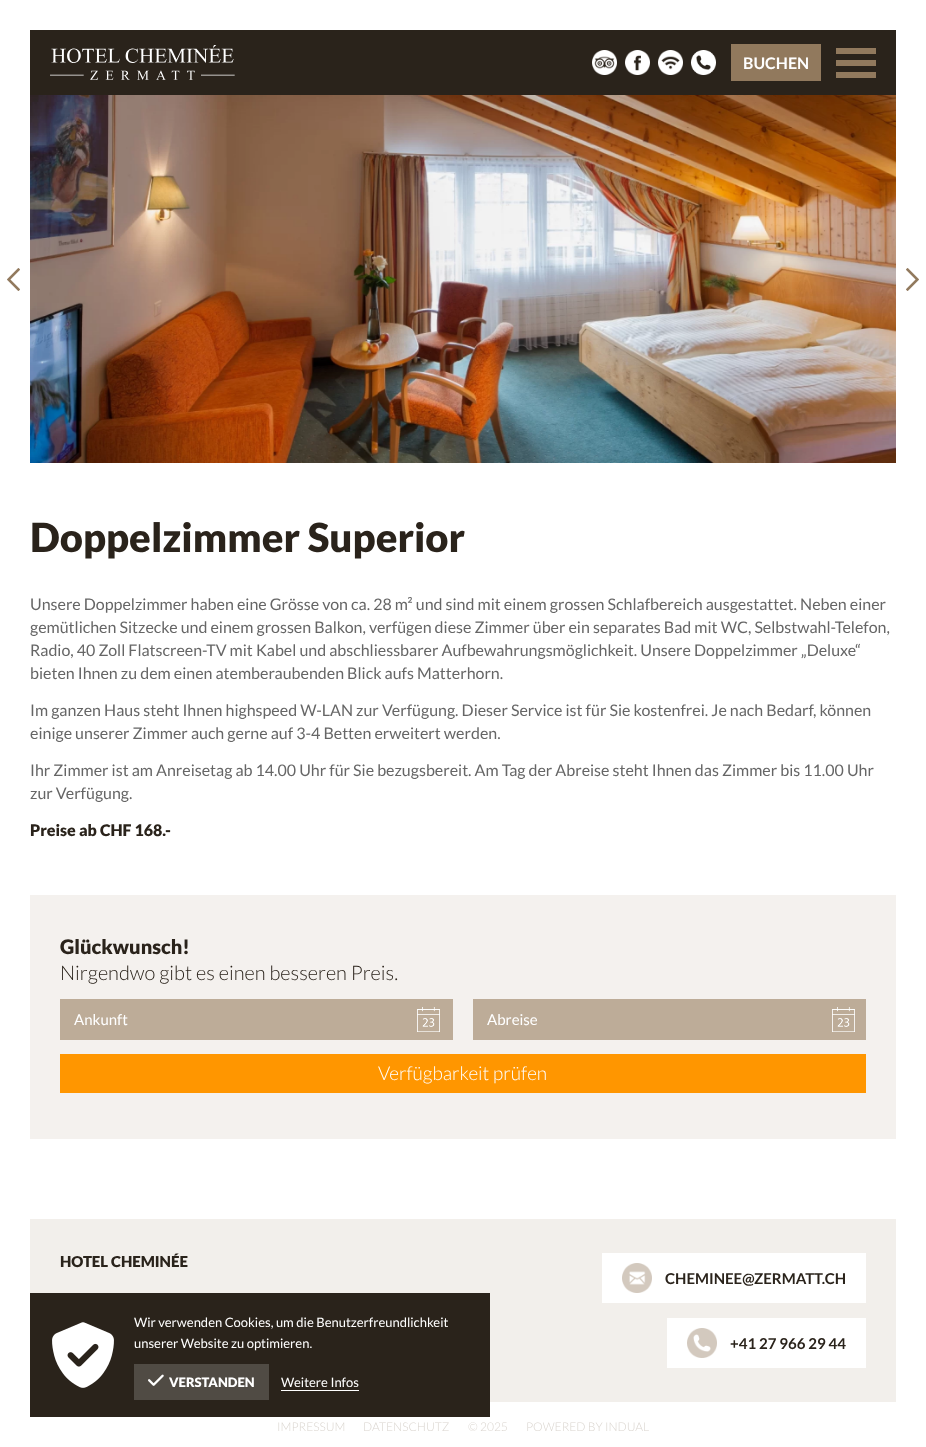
<svg xmlns="http://www.w3.org/2000/svg" width="926" height="1447" viewBox="0 0 926 1447">
  <rect width="100%" height="100%" fill="#ffffff"/>
  <rect x="30" y="30" width="866" height="65" fill="#2a231b"/>
  <image x="50" y="45" width="185" height="35" href="img1.png"/>
  <image x="592" y="50" width="25" height="25" href="img2.png"/>
  <image x="625" y="50" width="25" height="25" href="img3.png"/>
  <image x="658" y="50" width="25" height="25" href="img4.png"/>
  <image x="691" y="50" width="25" height="25" href="img5.png"/>
  <rect x="731" y="44" width="90" height="37" fill="#91795d"/>
  <text x="743" y="69" font-family="Lato" font-size="16" font-weight="bold" fill="#ffffff">BUCHEN</text>
  <rect x="836" y="48" width="40" height="6" fill="#91795d"/>
  <rect x="836" y="60" width="40" height="6" fill="#91795d"/>
  <rect x="836" y="72" width="40" height="6" fill="#91795d"/>
  <image x="30" y="95" width="866" height="368" href="img6.png"/>
  <image x="7" y="268" width="13" height="23" href="img7.png"/>
  <image x="906" y="268" width="13" height="23" href="img8.png"/>
  <text x="30" y="552" font-family="Lato" font-size="40" font-weight="900" fill="#2a231b">Doppelzimmer Superior</text>
  <text x="30" y="610" font-family="Lato" font-size="16" fill="#666666">Unsere Doppelzimmer haben eine Grösse von ca. 28 m² und sind mit einem grossen Schlafbereich ausgestattet. Neben einer</text>
  <text x="30" y="633" font-family="Lato" font-size="16" fill="#666666">gemütlichen Sitzecke und einem grossen Balkon, verfügen diese Zimmer über ein separates Bad mit WC, Selbstwahl-Telefon,</text>
  <text x="30" y="656" font-family="Lato" font-size="16" fill="#666666">Radio, 40 Zoll Flatscreen-TV mit Kabel und abschliessbarer Aufbewahrungsmöglichkeit. Unsere Doppelzimmer „Deluxe“</text>
  <text x="30" y="679" font-family="Lato" font-size="16" fill="#666666">bieten Ihnen zu dem einen atemberaubenden Blick aufs Matterhorn.</text>
  <text x="30" y="716" font-family="Lato" font-size="16" fill="#666666">Im ganzen Haus steht Ihnen highspeed W-LAN zur Verfügung. Dieser Service ist für Sie kostenfrei. Je nach Bedarf, können</text>
  <text x="30" y="739" font-family="Lato" font-size="16" fill="#666666">einige unserer Zimmer auch gerne auf 3-4 Betten erweitert werden.</text>
  <text x="30" y="776" font-family="Lato" font-size="16" fill="#666666">Ihr Zimmer ist am Anreisetag ab 14.00 Uhr für Sie bezugsbereit. Am Tag der Abreise steht Ihnen das Zimmer bis 11.00 Uhr</text>
  <text x="30" y="799" font-family="Lato" font-size="16" fill="#666666">zur Verfügung.</text>
  <text x="30" y="836" font-family="Lato" font-size="16" font-weight="900" fill="#2a231b">Preise ab CHF 168.-</text>
  <rect x="30" y="895" width="866" height="244" fill="#f4f1ee"/>
  <text x="60" y="954" font-family="Lato" font-size="20" font-weight="900" fill="#2a231b">Glückwunsch!</text>
  <text x="60" y="980" font-family="Lato" font-size="20" font-weight="300" fill="#2a231b">Nirgendwo gibt es einen besseren Preis.</text>
  <rect x="60" y="999" width="393" height="41" fill="#bdac98"/>
  <text x="74" y="1025" font-family="Lato" font-size="15" fill="#ffffff">Ankunft</text>
  <image x="417" y="1007" width="23" height="25" href="img9.png"/>
  <rect x="473" y="999" width="393" height="41" fill="#bdac98"/>
  <text x="487" y="1025" font-family="Lato" font-size="15" fill="#ffffff">Abreise</text>
  <image x="832" y="1007" width="23" height="25" href="img10.png"/>
  <rect x="60" y="1054" width="806" height="39" fill="#ff9600"/>
  <text x="378" y="1080" font-family="Lato" font-size="19" font-weight="300" fill="#ffffff">Verfügbarkeit prüfen</text>
  <rect x="30" y="1219" width="866" height="183" fill="#f2efeb"/>
  <text x="60" y="1267" font-family="Lato" font-size="15" font-weight="900" fill="#2a231b">HOTEL CHEMINÉE</text>
  <rect x="602" y="1253" width="264" height="50" fill="#ffffff"/>
  <image x="622" y="1263" width="30" height="30" href="img11.png"/>
  <text x="665" y="1284" font-family="Lato" font-size="15" font-weight="bold" fill="#2a231b">CHEMINEE@ZERMATT.CH</text>
  <rect x="667" y="1318" width="199" height="50" fill="#ffffff"/>
  <image x="687" y="1328" width="30" height="30" href="img12.png"/>
  <text x="730" y="1349" font-family="Lato" font-size="15" font-weight="bold" fill="#2a231b">+41 27 966 29 44</text>
  <text x="277" y="1431" font-family="Lato" font-size="12" font-weight="300" fill="#dad5cf">IMPRESSUM</text>
  <text x="363" y="1431" font-family="Lato" font-size="12" font-weight="300" fill="#dad5cf">DATENSCHUTZ</text>
  <text x="468" y="1431" font-family="Lato" font-size="12" font-weight="300" fill="#dad5cf">© 2025</text>
  <text x="526" y="1431" font-family="Lato" font-size="12" font-weight="300" fill="#dad5cf">POWERED BY INDUAL</text>
  <rect x="30" y="1293" width="460" height="124" fill="#2a231b"/>
  <image x="52" y="1322" width="62" height="66" href="img13.png"/>
  <text x="134" y="1327" font-family="Lato" font-size="13" fill="#ffffff">Wir verwenden Cookies, um die Benutzerfreundlichkeit</text>
  <text x="134" y="1348" font-family="Lato" font-size="13" fill="#ffffff">unserer Website zu optimieren.</text>
  <rect x="134" y="1364" width="135" height="36" fill="#504b44"/>
  <image x="148" y="1374" width="16" height="12" href="img14.png"/>
  <text x="169" y="1387" font-family="Lato" font-size="13" font-weight="900" fill="#ffffff">VERSTANDEN</text>
  <text x="281" y="1387" font-family="Lato" font-size="13" fill="#ffffff">Weitere Infos</text>
  <rect x="281" y="1390" width="78" height="1" fill="#ffffff"/>
</svg>
